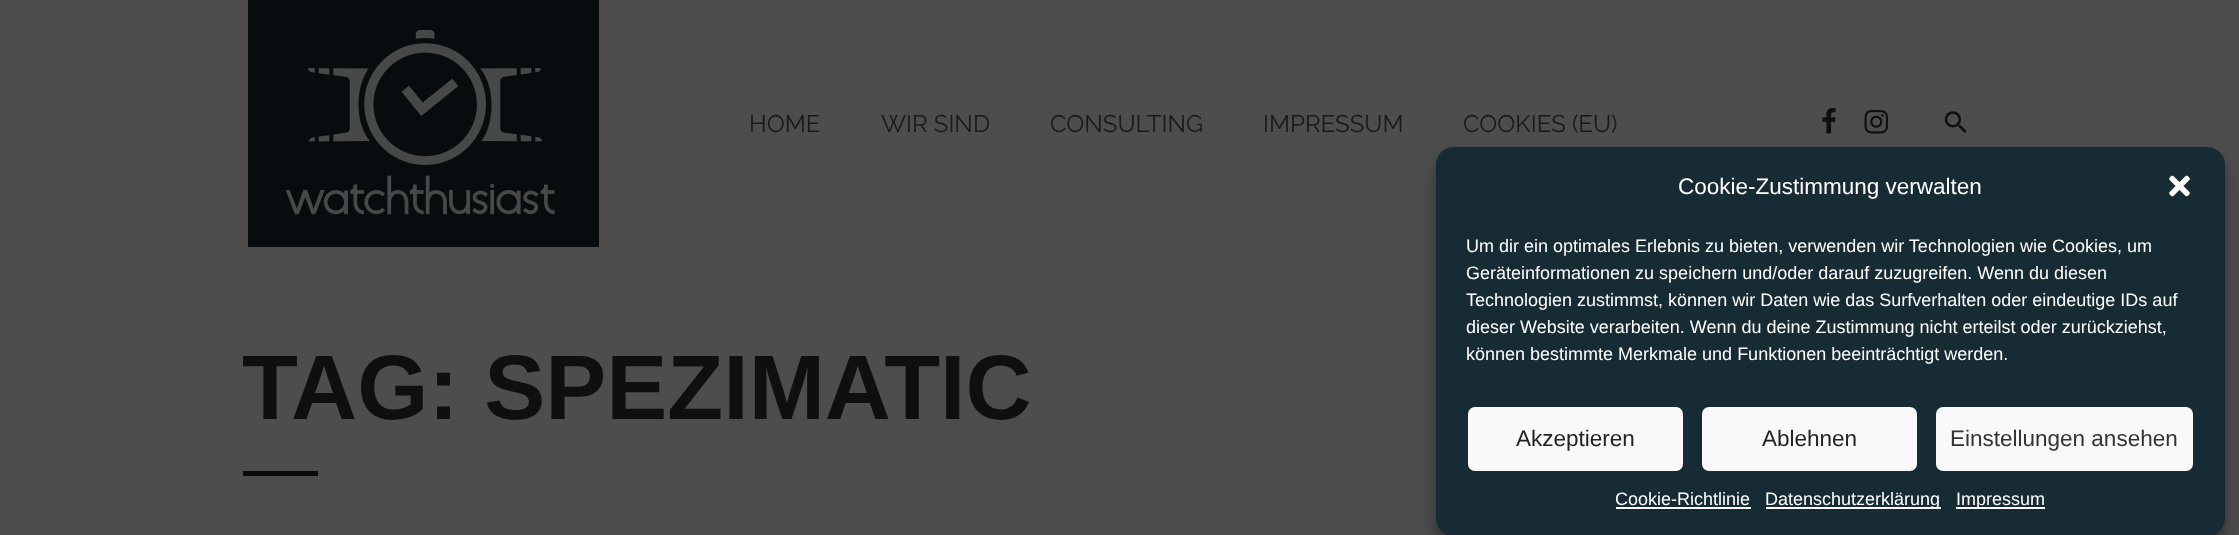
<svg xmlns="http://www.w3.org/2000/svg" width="2239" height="535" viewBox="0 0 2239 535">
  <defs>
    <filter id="blur1" x="-50%" y="-200%" width="200%" height="500%"><feGaussianBlur stdDeviation="4.5"/></filter>
    <filter id="blur2" x="-50%" y="-200%" width="200%" height="500%"><feGaussianBlur stdDeviation="15"/></filter>
  </defs>
  <rect width="100%" height="100%" fill="#4d4d4d"/>
  <image x="248" y="0" width="351" height="247" href="img1.png"/>
  <text x="749" y="132" font-family="Raleway" font-size="24" fill="#151a1c">HOME</text>
  <text x="881" y="132" font-family="Raleway" font-size="24" fill="#151a1c">WIR SIND</text>
  <text x="1050" y="132" font-family="Raleway" font-size="24" fill="#151a1c">CONSULTING</text>
  <text x="1263" y="132" font-family="Raleway" font-size="24" fill="#151a1c">IMPRESSUM</text>
  <text x="1463" y="132" font-family="Raleway" font-size="24" fill="#151a1c">COOKIES (EU)</text>
  <image x="1822" y="108" width="14" height="26" href="img2.png"/>
  <image x="1864" y="110" width="24" height="24" href="img3.png"/>
  <image x="1944" y="111" width="23" height="22" href="img4.png"/>
  <text x="242" y="419" font-family="Liberation Sans" font-size="91.5" font-weight="bold" fill="#0f0f0f">TAG: SPEZIMATIC</text>
  <rect x="243" y="471" width="75" height="5" fill="#0a0a0a"/>
  <rect x="1436" y="156" width="789" height="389" rx="18" fill="#000000" fill-opacity="0.23" filter="url(#blur1)"/>
  <rect x="1436" y="162" width="789" height="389" rx="18" fill="#000000" fill-opacity="0.19" filter="url(#blur2)"/>
  <rect x="1436" y="147" width="789" height="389" rx="18" fill="#162b33"/>
  <text x="1678" y="194" font-family="Liberation Sans" font-size="22.5" fill="#ffffff">Cookie-Zustimmung verwalten</text>
  <image x="2169" y="175" width="21" height="22" href="img5.png"/>
  <text x="1466" y="252" font-family="Liberation Sans" font-size="18" fill="#ffffff">Um dir ein optimales Erlebnis zu bieten, verwenden wir Technologien wie Cookies, um</text>
  <text x="1466" y="279" font-family="Liberation Sans" font-size="18" fill="#ffffff">Geräteinformationen zu speichern und/oder darauf zuzugreifen. Wenn du diesen</text>
  <text x="1466" y="306" font-family="Liberation Sans" font-size="18" fill="#ffffff">Technologien zustimmst, können wir Daten wie das Surfverhalten oder eindeutige IDs auf</text>
  <text x="1466" y="333" font-family="Liberation Sans" font-size="18" fill="#ffffff">dieser Website verarbeiten. Wenn du deine Zustimmung nicht erteilst oder zurückziehst,</text>
  <text x="1466" y="360" font-family="Liberation Sans" font-size="18" fill="#ffffff">können bestimmte Merkmale und Funktionen beeinträchtigt werden.</text>
  <rect x="1467" y="406" width="217" height="66" rx="8" fill="#f9f9f9" stroke="#162b33" stroke-width="2"/>
  <text x="1516" y="446" font-family="Liberation Sans" font-size="22.5" fill="#222222">Akzeptieren</text>
  <rect x="1701" y="406" width="217" height="66" rx="8" fill="#f9f9f9" stroke="#162b33" stroke-width="2"/>
  <text x="1762" y="446" font-family="Liberation Sans" font-size="22.5" fill="#222222">Ablehnen</text>
  <rect x="1935" y="406" width="259" height="66" rx="8" fill="#f9f9f9" stroke="#162b33" stroke-width="2"/>
  <text x="1950" y="446" font-family="Liberation Sans" font-size="22.5" fill="#333333">Einstellungen ansehen</text>
  <text x="1615" y="505" font-family="Liberation Sans" font-size="18" fill="#ffffff">Cookie-Richtlinie</text>
  <rect x="1616" y="507" width="135" height="2" fill="#ffffff"/>
  <rect x="1766" y="507" width="175" height="2" fill="#ffffff"/>
  <text x="1765" y="505" font-family="Liberation Sans" font-size="18" fill="#ffffff">Datenschutzerklärung</text>
  <rect x="1956" y="507" width="89" height="2" fill="#ffffff"/>
  <text x="1956" y="505" font-family="Liberation Sans" font-size="18" fill="#ffffff">Impressum</text>
</svg>
